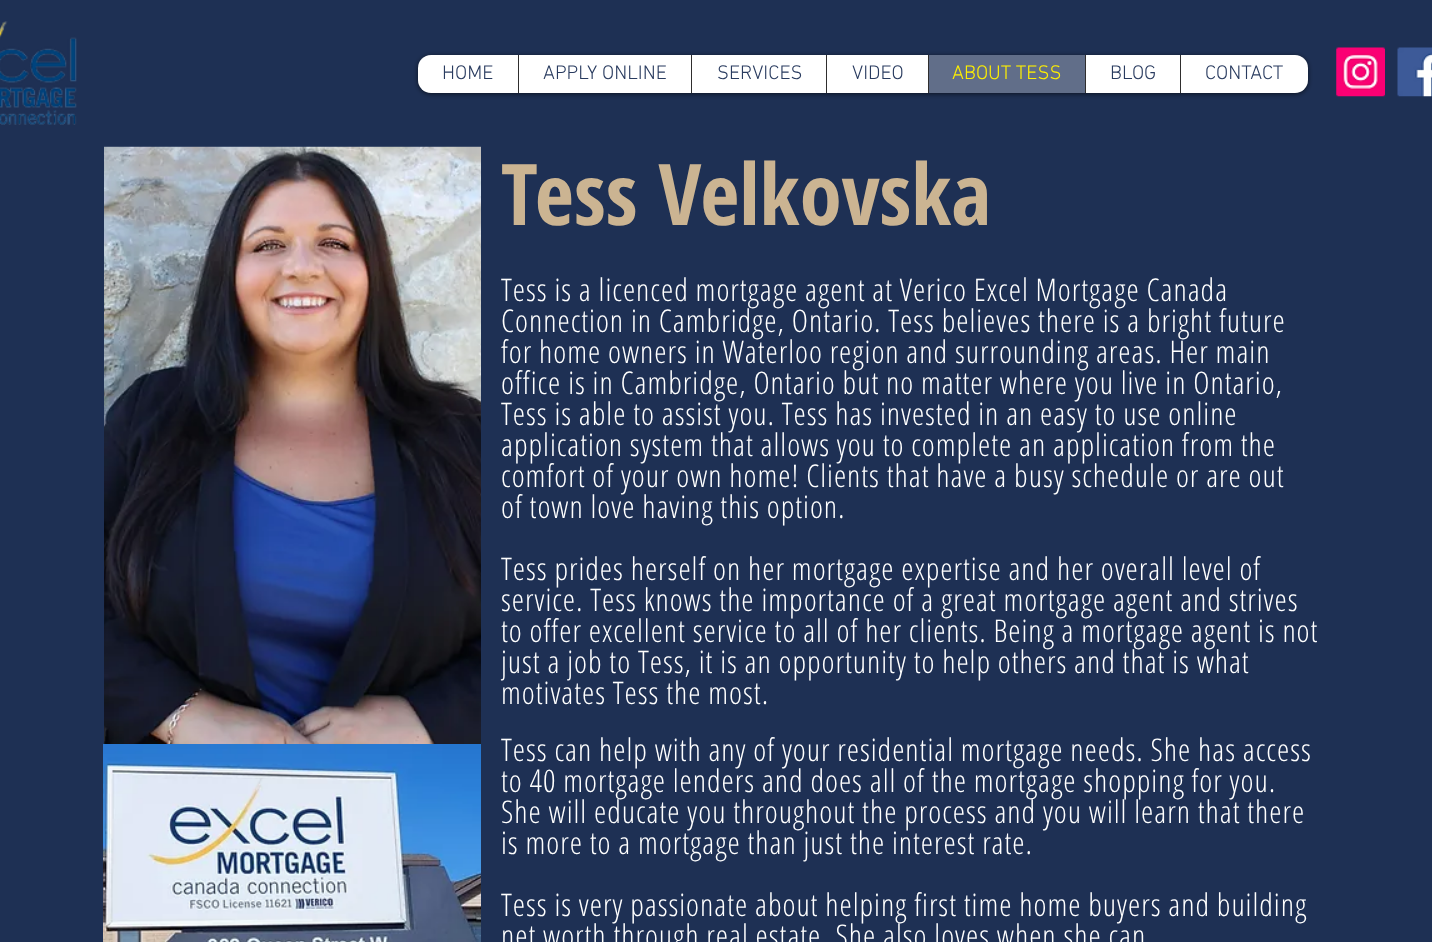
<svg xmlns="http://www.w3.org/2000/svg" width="1432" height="942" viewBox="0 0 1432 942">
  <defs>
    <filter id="blur1" x="-50%" y="-200%" width="200%" height="500%"><feGaussianBlur stdDeviation="2.5"/></filter>
  </defs>
  <rect width="100%" height="100%" fill="#1e3054"/>
  <image x="0" y="21" width="77" height="104" href="img1.png"/>
  <rect x="418" y="56" width="890" height="38" rx="13" fill="#000000" fill-opacity="0.6" filter="url(#blur1)"/>
  <rect x="418" y="55" width="890" height="38" rx="13" fill="#ffffff"/>
  <text x="442" y="79" font-family="'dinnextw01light'" font-size="20" font-weight="300" fill="#293b5f">HOME</text>
  <rect x="518" y="55" width="1" height="38" fill="#2f2e2e"/>
  <text x="543" y="79" font-family="'dinnextw01light'" font-size="20" font-weight="300" fill="#293b5f">APPLY ONLINE</text>
  <rect x="691" y="55" width="1" height="38" fill="#2f2e2e"/>
  <text x="717" y="79" font-family="'dinnextw01light'" font-size="20" font-weight="300" fill="#293b5f">SERVICES</text>
  <rect x="826" y="55" width="1" height="38" fill="#2f2e2e"/>
  <text x="852" y="79" font-family="'dinnextw01light'" font-size="20" font-weight="300" fill="#293b5f">VIDEO</text>
  <rect x="929" y="55" width="156" height="38" fill="#616e89"/>
  <rect x="928" y="55" width="1" height="38" fill="#2f2e2e"/>
  <text x="952" y="79" font-family="'dinnextw01light'" font-size="20" font-weight="300" fill="#fff000">ABOUT TESS</text>
  <rect x="1085" y="55" width="1" height="38" fill="#2f2e2e"/>
  <text x="1110" y="79" font-family="'dinnextw01light'" font-size="20" font-weight="300" fill="#293b5f">BLOG</text>
  <rect x="1180" y="55" width="1" height="38" fill="#2f2e2e"/>
  <text x="1205" y="79" font-family="'dinnextw01light'" font-size="20" font-weight="300" fill="#293b5f">CONTACT</text>
  <image x="1336" y="47" width="49" height="50" href="img2.png"/>
  <image x="1397" y="47" width="35" height="50" href="img3.png"/>
  <image x="104" y="146" width="377" height="598" href="img4.png"/>
  <text x="501" y="225" font-family="Open Sans Condensed" font-size="85" font-weight="bold" fill="#cbb492">Tess Velkovska</text>
  <image x="103" y="744" width="378" height="198" href="img5.png"/>
  <text x="501" y="301" font-family="Open Sans Condensed" font-size="31.25" font-weight="300" letter-spacing="0.95" fill="#ffffff">Tess is a licenced mortgage agent at Verico Excel Mortgage Canada</text>
  <text x="501" y="332" font-family="Open Sans Condensed" font-size="31.25" font-weight="300" letter-spacing="0.95" fill="#ffffff">Connection in Cambridge, Ontario. Tess believes there is a bright future</text>
  <text x="501" y="363" font-family="Open Sans Condensed" font-size="31.25" font-weight="300" letter-spacing="0.95" fill="#ffffff">for home owners in Waterloo region and surrounding areas. Her main</text>
  <text x="501" y="394" font-family="Open Sans Condensed" font-size="31.25" font-weight="300" letter-spacing="0.95" fill="#ffffff">office is in Cambridge, Ontario but no matter where you live in Ontario,</text>
  <text x="501" y="425" font-family="Open Sans Condensed" font-size="31.25" font-weight="300" letter-spacing="0.95" fill="#ffffff">Tess is able to assist you. Tess has invested in an easy to use online</text>
  <text x="501" y="456" font-family="Open Sans Condensed" font-size="31.25" font-weight="300" letter-spacing="0.95" fill="#ffffff">application system that allows you to complete an application from the</text>
  <text x="501" y="487" font-family="Open Sans Condensed" font-size="31.25" font-weight="300" letter-spacing="0.95" fill="#ffffff">comfort of your own home! Clients that have a busy schedule or are out</text>
  <text x="501" y="518" font-family="Open Sans Condensed" font-size="31.25" font-weight="300" letter-spacing="0.95" fill="#ffffff">of town love having this option.</text>
  <text x="501" y="580" font-family="Open Sans Condensed" font-size="31.25" font-weight="300" letter-spacing="0.95" fill="#ffffff">Tess prides herself on her mortgage expertise and her overall level of</text>
  <text x="501" y="611" font-family="Open Sans Condensed" font-size="31.25" font-weight="300" letter-spacing="0.95" fill="#ffffff">service. Tess knows the importance of a great mortgage agent and strives</text>
  <text x="501" y="642" font-family="Open Sans Condensed" font-size="31.25" font-weight="300" letter-spacing="0.95" fill="#ffffff">to offer excellent service to all of her clients. Being a mortgage agent is not</text>
  <text x="501" y="673" font-family="Open Sans Condensed" font-size="31.25" font-weight="300" letter-spacing="0.95" fill="#ffffff">just a job to Tess, it is an opportunity to help others and that is what</text>
  <text x="501" y="704" font-family="Open Sans Condensed" font-size="31.25" font-weight="300" letter-spacing="0.95" fill="#ffffff">motivates Tess the most.</text>
  <text x="501" y="761" font-family="Open Sans Condensed" font-size="31.25" font-weight="300" letter-spacing="0.95" fill="#ffffff">Tess can help with any of your residential mortgage needs. She has access</text>
  <text x="501" y="792" font-family="Open Sans Condensed" font-size="31.25" font-weight="300" letter-spacing="0.95" fill="#ffffff">to 40 mortgage lenders and does all of the mortgage shopping for you.</text>
  <text x="501" y="823" font-family="Open Sans Condensed" font-size="31.25" font-weight="300" letter-spacing="0.95" fill="#ffffff">She will educate you throughout the process and you will learn that there</text>
  <text x="501" y="854" font-family="Open Sans Condensed" font-size="31.25" font-weight="300" letter-spacing="0.95" fill="#ffffff">is more to a mortgage than just the interest rate.</text>
  <text x="501" y="916" font-family="Open Sans Condensed" font-size="31.25" font-weight="300" letter-spacing="0.95" fill="#ffffff">Tess is very passionate about helping first time home buyers and building</text>
  <text x="501" y="947" font-family="Open Sans Condensed" font-size="31.25" font-weight="300" letter-spacing="0.95" fill="#ffffff">net worth through real estate. She also loves when she can</text>
</svg>
